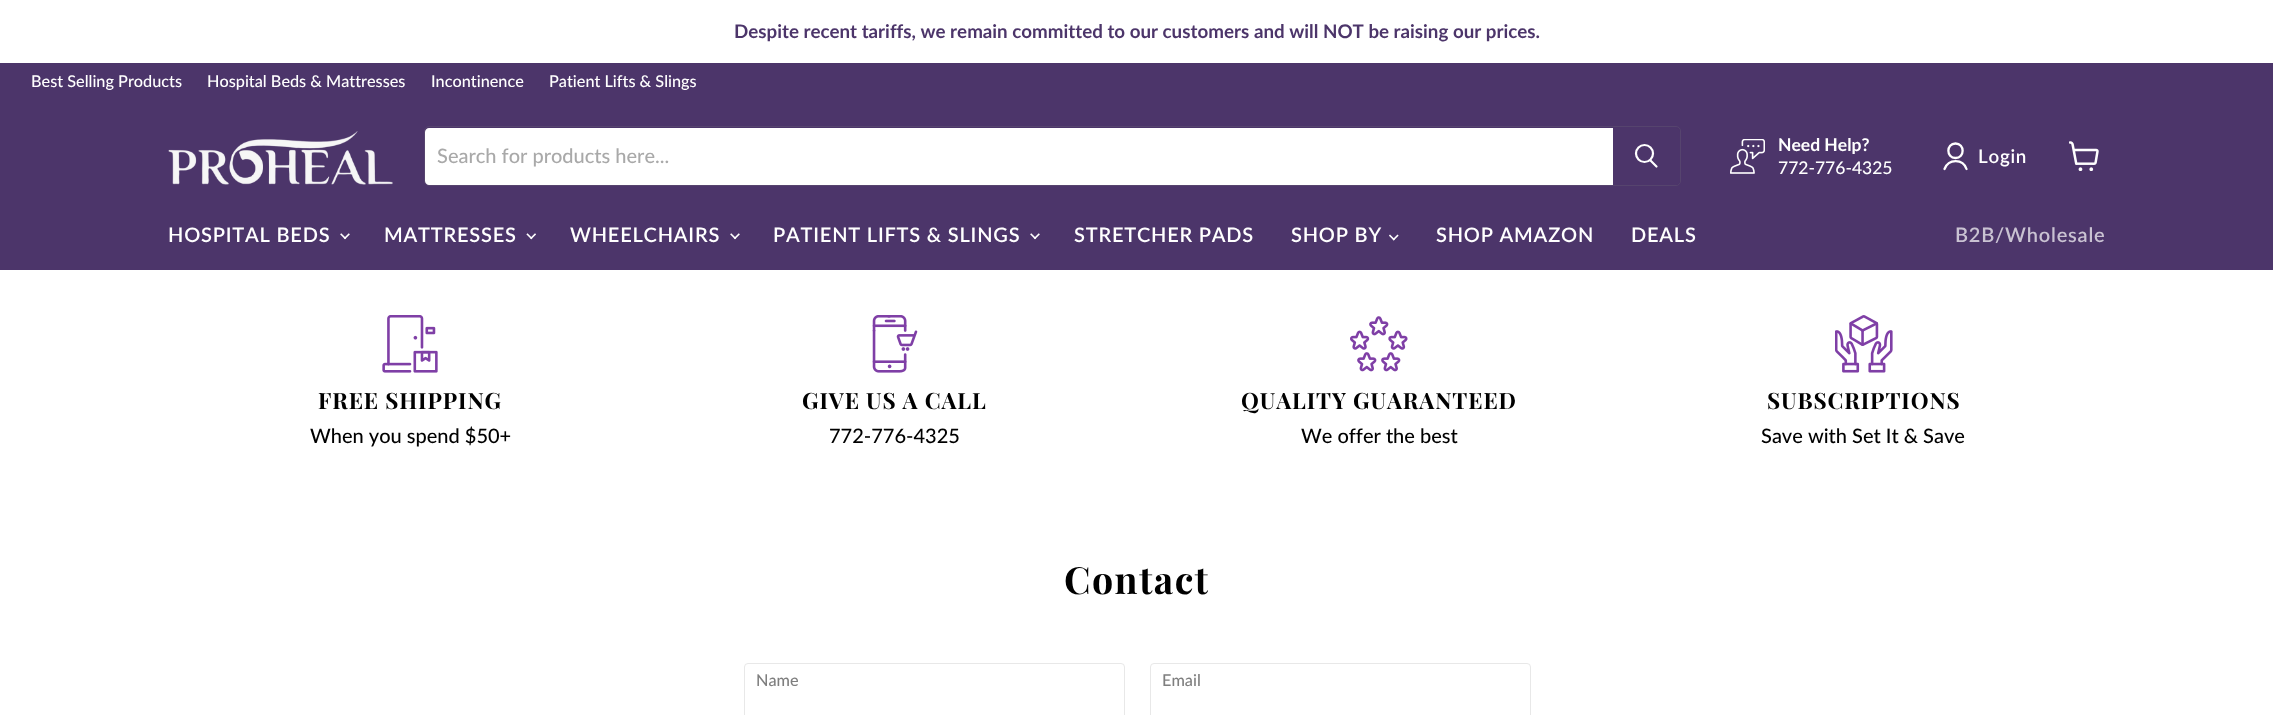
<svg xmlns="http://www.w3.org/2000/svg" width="2273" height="715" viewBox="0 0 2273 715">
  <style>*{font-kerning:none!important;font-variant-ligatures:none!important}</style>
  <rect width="100%" height="100%" fill="#ffffff"/>
  <text x="734" y="38" font-family="Lato" font-size="18.75" font-weight="bold" fill="#4c356a">Despite recent tariffs, we remain committed to our customers</text>
  <text x="1254" y="38" font-family="Lato" font-size="18.75" font-weight="bold" fill="#4c356a">and will NOT be raising our prices.</text>
  <rect x="0" y="63" width="2273" height="207" fill="#4c356a"/>
  <text x="31" y="87" font-family="Lato" font-size="16.25" font-weight="500" fill="#ffffff">Best Selling Products</text>
  <text x="207" y="87" font-family="Lato" font-size="16.25" font-weight="500" fill="#ffffff">Hospital Beds &amp; Mattresses</text>
  <text x="431" y="87" font-family="Lato" font-size="16.25" font-weight="500" fill="#ffffff">Incontinence</text>
  <text x="549" y="87" font-family="Lato" font-size="16.25" font-weight="500" fill="#ffffff">Patient Lifts &amp; Slings</text>
  <image x="168" y="131" width="225" height="54" href="img1.png"/>
  <rect x="424.5" y="126.5" width="1256" height="59" rx="4.5" fill="none" stroke="#56446e"/>
  <path d="M429 128H1613V185H429C427 185 425 183 425 181V132C425 130 427 128 429 128Z" fill="#ffffff"/>
  <text x="437" y="163" font-family="Lato" font-size="20" font-weight="500" fill="#a9a9a9">Search for products here...</text>
  <path d="M1613 128H1676C1678 128 1680 130 1680 132V181C1680 183 1678 185 1676 185H1613Z" fill="#4c356a"/>
  <path d="M1656.5 166.5L1650.5 160.5" fill="none" stroke="#ffffff" stroke-width="2.2" stroke-linecap="round"/>
  <circle cx="1644.5" cy="153.5" r="8.5" fill="none" stroke="#ffffff" stroke-width="2.2"/>
  <image x="1730" y="139" width="35" height="35" href="img2.png"/>
  <text x="1778" y="151" font-family="Lato" font-size="17.5" font-weight="bold" fill="#ffffff">Need Help?</text>
  <text x="1778" y="174" font-family="Lato" font-size="17.5" font-weight="500" fill="#ffffff">772-776-4325</text>
  <path d="M1955.5 158C1965 158 1965 143.5 1955.5 143.5C1946 143.5 1946 158 1955.5 158ZM1966.5 169C1963 158.5 1948.5 158.5 1944.5 169" fill="none" stroke="#ffffff" stroke-width="2.3" stroke-linecap="round" stroke-linejoin="round"/>
  <text x="1978" y="163" font-family="Lato" font-size="18.75" font-weight="600" letter-spacing="0.75" fill="#ffffff">Login</text>
  <image x="2069" y="141" width="30" height="30" href="img3.png"/>
  <text x="168" y="242" font-family="Lato" font-size="20" font-weight="600" letter-spacing="0.8" fill="#ffffff">HOSPITAL BEDS</text>
  <image x="340" y="233" width="10" height="7" href="img4.png"/>
  <text x="384" y="242" font-family="Lato" font-size="20" font-weight="600" letter-spacing="0.8" fill="#ffffff">MATTRESSES</text>
  <image x="526" y="233" width="10" height="7" href="img5.png"/>
  <text x="570" y="242" font-family="Lato" font-size="20" font-weight="600" letter-spacing="0.8" fill="#ffffff">WHEELCHAIRS</text>
  <image x="730" y="233" width="10" height="7" href="img4.png"/>
  <text x="773" y="242" font-family="Lato" font-size="20" font-weight="600" letter-spacing="0.8" fill="#ffffff">PATIENT LIFTS &amp; SLINGS</text>
  <image x="1030" y="233" width="10" height="7" href="img4.png"/>
  <text x="1074" y="242" font-family="Lato" font-size="20" font-weight="600" letter-spacing="0.8" fill="#ffffff">STRETCHER PADS</text>
  <text x="1291" y="242" font-family="Lato" font-size="20" font-weight="600" letter-spacing="0.8" fill="#ffffff">SHOP BY</text>
  <image x="1389" y="234" width="10" height="7" href="img6.png"/>
  <text x="1436" y="242" font-family="Lato" font-size="20" font-weight="600" letter-spacing="0.8" fill="#ffffff">SHOP AMAZON</text>
  <text x="1631" y="242" font-family="Lato" font-size="20" font-weight="600" letter-spacing="0.8" fill="#ffffff">DEALS</text>
  <text x="1955" y="242" font-family="Lato" font-size="20" font-weight="600" letter-spacing="0.8" fill="#c9c2d2">B2B/Wholesale</text>
  <image x="382" y="315" width="56" height="58" href="img7.png"/>
  <text x="318" y="409" font-family="Playfair Display" font-size="22.5" font-weight="bold" letter-spacing="0.9" fill="#000000">FREE SHIPPING</text>
  <text x="310" y="443" font-family="Lato" font-size="20" font-weight="500" fill="#000000">When you spend $50+</text>
  <image x="872" y="315" width="46" height="58" href="img8.png"/>
  <text x="802" y="409" font-family="Playfair Display" font-size="22.5" font-weight="bold" letter-spacing="0.9" fill="#000000">GIVE US A CALL</text>
  <text x="829" y="443" font-family="Lato" font-size="20" font-weight="500" fill="#000000">772-776-4325</text>
  <image x="1350" y="316" width="58" height="56" href="img9.png"/>
  <text x="1241" y="409" font-family="Playfair Display" font-size="22.5" font-weight="bold" letter-spacing="0.9" fill="#000000">QUALITY GUARANTEED</text>
  <text x="1301" y="443" font-family="Lato" font-size="20" font-weight="500" fill="#000000">We offer the best</text>
  <image x="1835" y="315" width="58" height="58" href="img10.png"/>
  <text x="1767" y="409" font-family="Playfair Display" font-size="22.5" font-weight="bold" letter-spacing="0.9" fill="#000000">SUBSCRIPTIONS</text>
  <text x="1761" y="443" font-family="Lato" font-size="20" font-weight="500" fill="#000000">Save with Set It &amp; Save</text>
  <text x="1064" y="594" font-family="Playfair Display" font-size="37.5" font-weight="bold" letter-spacing="1.5" fill="#000000">Contact</text>
  <rect x="744.5" y="663.5" width="380" height="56" rx="3.5" fill="none" stroke="#e8e8e8"/>
  <text x="756" y="686" font-family="Lato" font-size="16.25" font-weight="500" fill="#7f7f7f">Name</text>
  <rect x="1150.5" y="663.5" width="380" height="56" rx="3.5" fill="none" stroke="#e8e8e8"/>
  <text x="1162" y="686" font-family="Lato" font-size="16.25" font-weight="500" fill="#7f7f7f">Email</text>
</svg>
